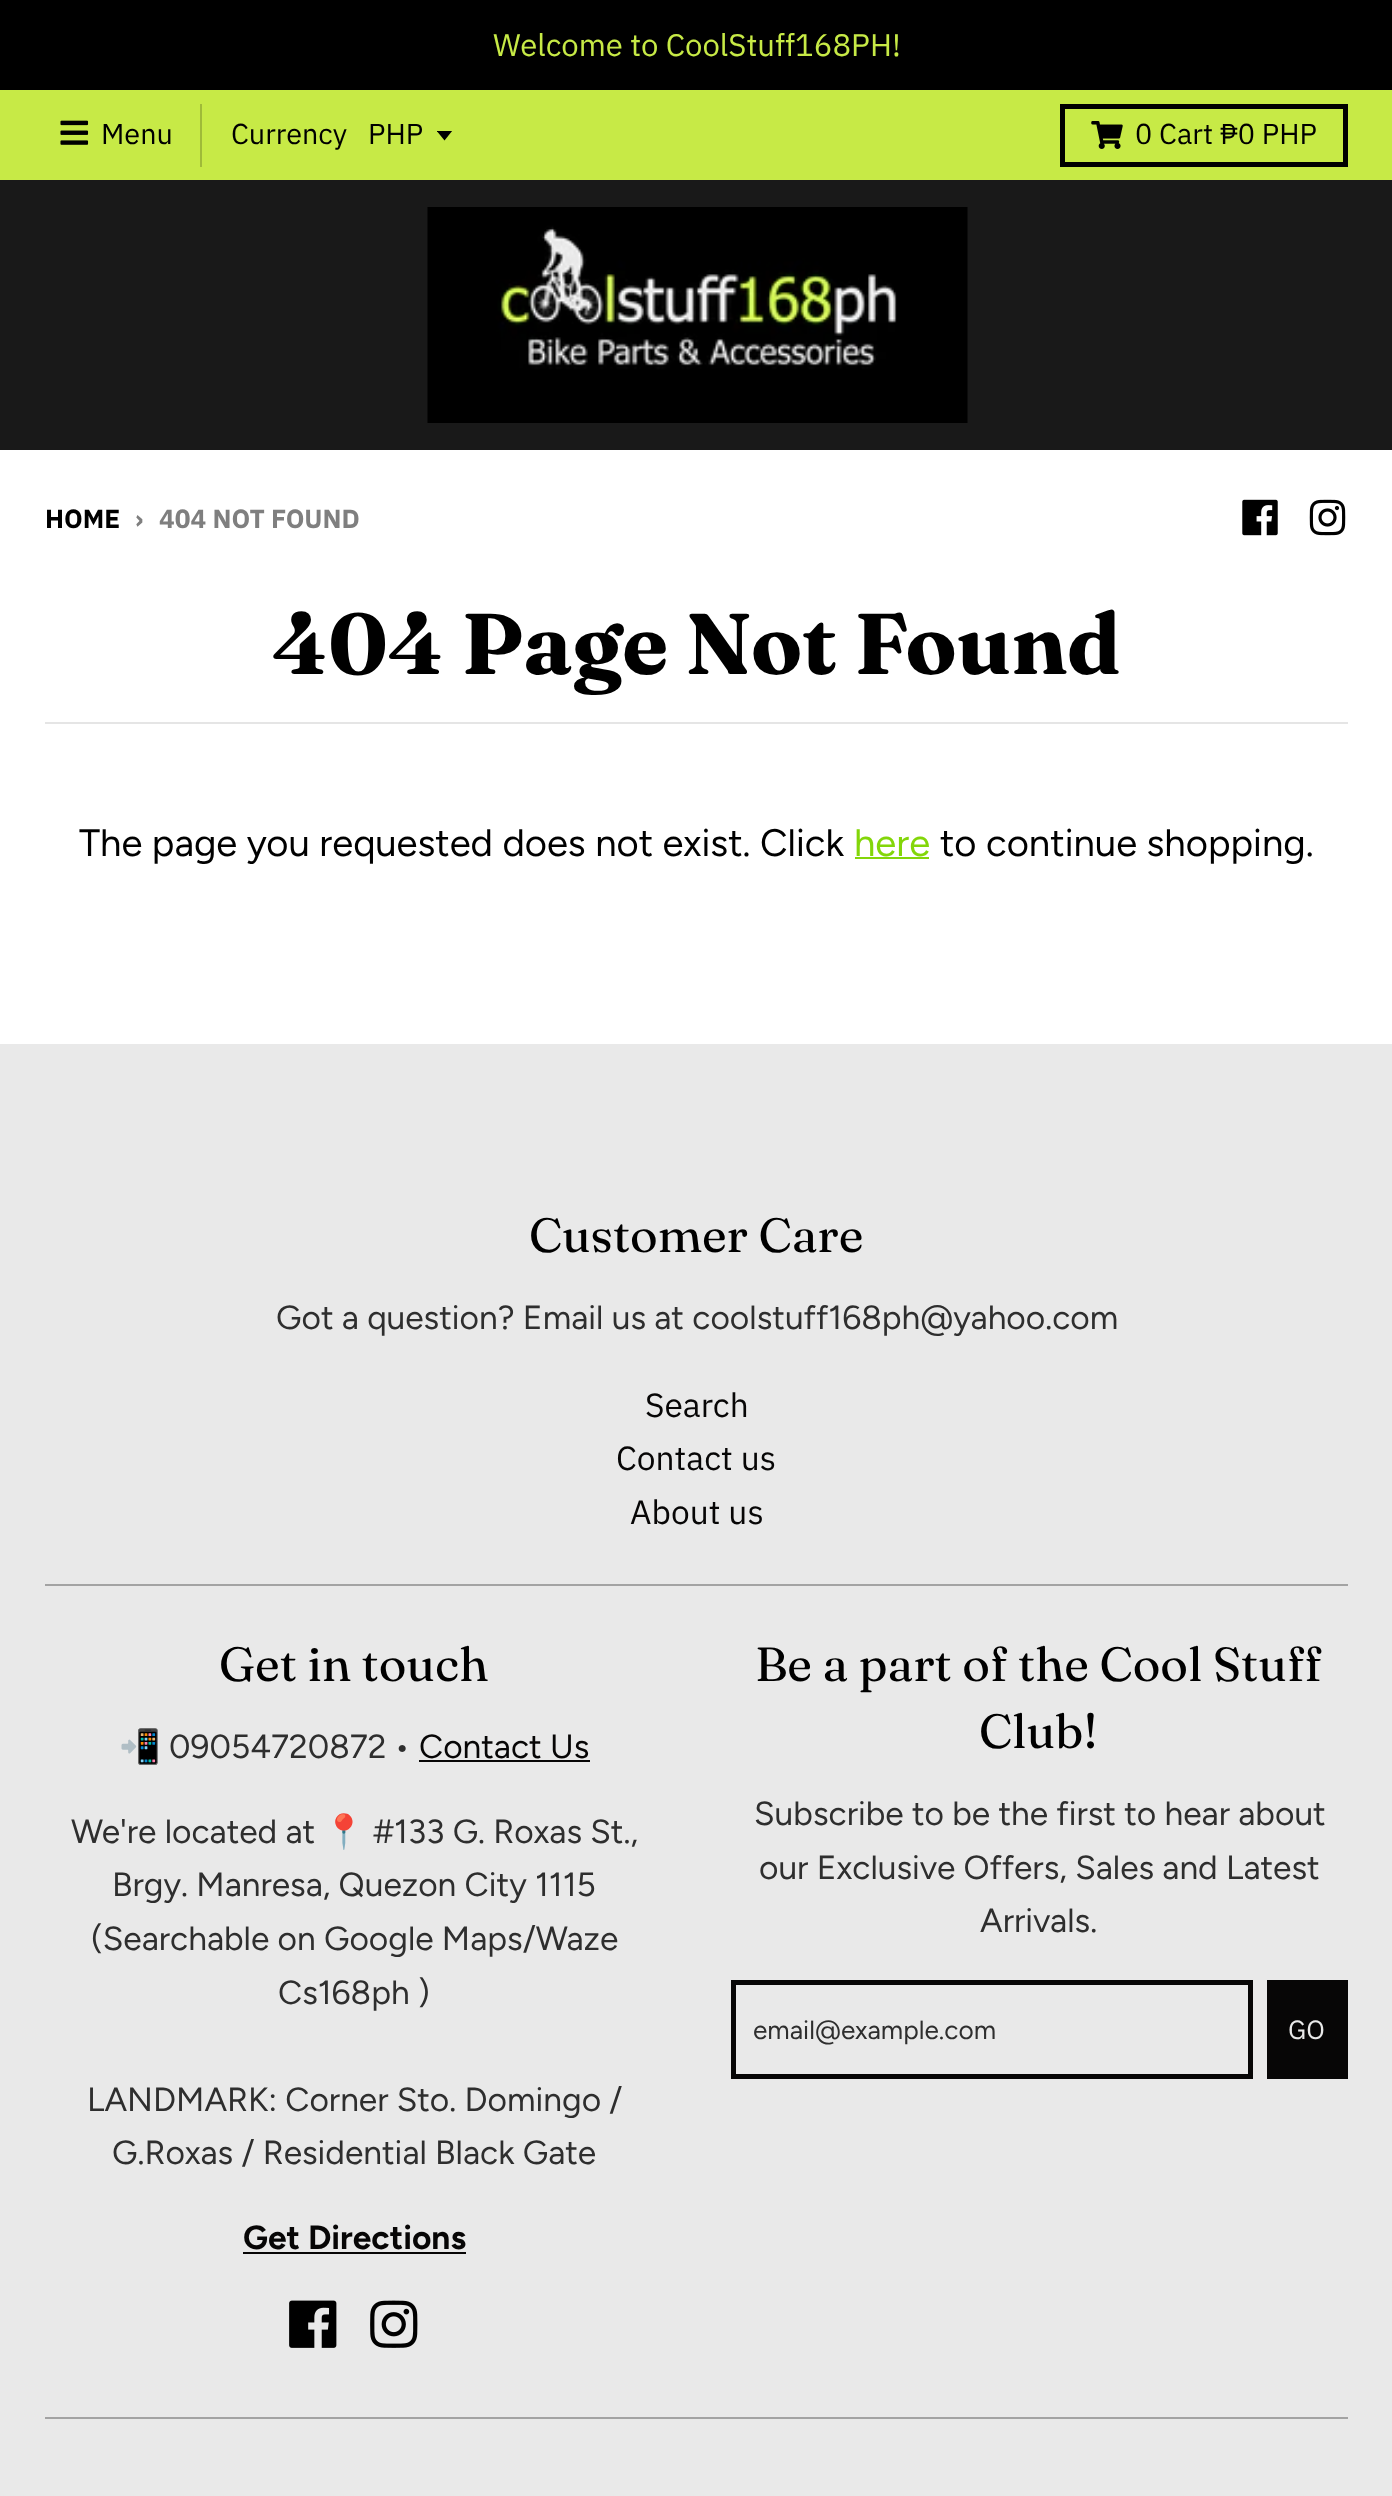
<svg xmlns="http://www.w3.org/2000/svg" width="1392" height="2496" viewBox="0 0 1392 2496">
  <defs>
    <clipPath id="clip1"><rect x="437" y="131" width="18" height="11"/></clipPath>
    <clipPath id="clip2"><rect x="754" y="2014" width="477" height="31"/></clipPath>
  </defs>
  <rect width="100%" height="100%" fill="#ffffff"/>
  <rect x="0" y="0" width="1392" height="90" fill="#000000"/>
  <text x="493" y="56" font-family="IBM Plex Sans" font-size="31.1" fill="#c7ea46">Welcome to CoolStuff168PH!</text>
  <rect x="0" y="90" width="1392" height="90" fill="#c7ea46"/>
  <rect x="200" y="104" width="2" height="63" fill="#9fbb38"/>
  <image x="60" y="120" width="29" height="25" href="img1.png"/>
  <text x="101" y="144" font-family="IBM Plex Sans" font-size="28.75" fill="#000000">Menu</text>
  <text x="231" y="144" font-family="IBM Plex Sans" font-size="28.75" fill="#000000">Currency</text>
  <g clip-path="url(#clip1)">
    <path d="M436.5 130.5L444.5 140.5L452.5 130.5Z" fill="#000000"/>
  </g>
  <text x="368" y="144" font-family="IBM Plex Sans" font-size="28.75" fill="#000000">PHP</text>
  <rect x="1062.5" y="106.5" width="283" height="58" fill="none" stroke="#000000" stroke-width="5"/>
  <image x="1091" y="121" width="32" height="28" href="img2.png"/>
  <text x="1135" y="144" font-family="IBM Plex Sans" font-size="28.75" fill="#000000">0 Cart ₱0 PHP</text>
  <rect x="0" y="180" width="1392" height="270" fill="#191919"/>
  <image x="427" y="207" width="541" height="216" href="img3.png"/>
  <text x="45" y="528" font-family="IBM Plex Sans" font-size="26.25" font-weight="bold" fill="#000000">HOME</text>
  <text x="135" y="528" font-family="IBM Plex Sans" font-size="26.25" font-weight="bold" fill="#7f7f7f">›</text>
  <text x="159" y="528" font-family="IBM Plex Sans" font-size="26.25" font-weight="bold" fill="#7f7f7f">404 NOT FOUND</text>
  <image x="1242" y="499" width="36" height="37" href="img4.png"/>
  <image x="1309" y="499" width="37" height="37" href="img5.png"/>
  <rect x="45" y="722" width="1303" height="2" fill="#e5e5e5"/>
  <text x="272" y="674" font-family="Fraunces" font-size="86" font-weight="bold" fill="#000000">404 Page Not Found</text>
  <text x="79" y="856" font-family="Figtree" font-size="38.25" fill="#000000">The page you requested does not exist. Click</text>
  <text x="854" y="856" font-family="Figtree" font-size="38.25" fill="#83d609">here</text>
  <rect x="855" y="857" width="74" height="2" fill="#83d609"/>
  <text x="940" y="856" font-family="Figtree" font-size="38.25" fill="#000000">to continue shopping.</text>
  <rect x="0" y="1044" width="1392" height="1452" fill="#e9e9e9"/>
  <text x="529" y="1252" font-family="Fraunces" font-size="47.75" fill="#000000">Customer Care</text>
  <text x="276" y="1329" font-family="Figtree" font-size="33.5" fill="#2e2e2e">Got a question? Email us at coolstuff168ph@yahoo.com</text>
  <rect x="45" y="1584" width="1303" height="2" fill="#a3a3a3"/>
  <text x="645" y="1417" font-family="IBM Plex Sans" font-size="33.5" fill="#070606">Search</text>
  <text x="616" y="1470" font-family="IBM Plex Sans" font-size="33.5" fill="#070606">Contact us</text>
  <text x="630" y="1524" font-family="IBM Plex Sans" font-size="33.5" fill="#070606">About us</text>
  <text x="219" y="1681" font-family="Fraunces" font-size="47.75" fill="#000000">Get in touch</text>
  <text x="119" y="1758" font-family="Noto Color Emoji" font-size="33.5" fill="#2e2e2e">📲</text>
  <text x="169" y="1758" font-family="Figtree" font-size="33.5" fill="#2e2e2e">09054720872</text>
  <text x="394" y="1758" font-family="Figtree" font-size="33.5" fill="#2e2e2e">•</text>
  <text x="419" y="1758" font-family="Figtree" font-size="33.5" fill="#070606">Contact Us</text>
  <rect x="419" y="1760" width="171" height="2" fill="#070606"/>
  <text x="71" y="1843" font-family="Figtree" font-size="33.5" fill="#2e2e2e">We're located at</text>
  <text x="323" y="1843" font-family="Noto Color Emoji" font-size="33.5" fill="#2e2e2e">📍</text>
  <text x="373" y="1843" font-family="Figtree" font-size="33.5" fill="#2e2e2e">#133 G. Roxas St.,</text>
  <text x="112" y="1896" font-family="Figtree" font-size="33.5" fill="#2e2e2e">Brgy. Manresa, Quezon City 1115</text>
  <text x="91" y="1950" font-family="Figtree" font-size="33.5" fill="#2e2e2e">(Searchable on Google Maps/Waze</text>
  <text x="278" y="2004" font-family="Figtree" font-size="33.5" fill="#2e2e2e">Cs168ph )</text>
  <text x="87" y="2111" font-family="Figtree" font-size="33.5" fill="#2e2e2e">LANDMARK: Corner Sto. Domingo /</text>
  <text x="112" y="2164" font-family="Figtree" font-size="33.5" fill="#2e2e2e">G.Roxas / Residential Black Gate</text>
  <text x="243" y="2249" font-family="Figtree" font-size="33.5" font-weight="bold" fill="#070606">Get Directions</text>
  <rect x="243" y="2252" width="223" height="2" fill="#070606"/>
  <image x="289" y="2300" width="48" height="48" href="img6.png"/>
  <image x="370" y="2300" width="48" height="48" href="img7.png"/>
  <text x="755" y="1681" font-family="Fraunces" font-size="47.75" fill="#000000">Be a part of the Cool Stuff</text>
  <text x="979" y="1748" font-family="Fraunces" font-size="47.75" fill="#000000">Club!</text>
  <text x="754" y="1825" font-family="Figtree" font-size="33.5" fill="#2e2e2e">Subscribe to be the first to hear about</text>
  <text x="759" y="1879" font-family="Figtree" font-size="33.5" fill="#2e2e2e">our Exclusive Offers, Sales and Latest</text>
  <text x="980" y="1932" font-family="Figtree" font-size="33.5" fill="#2e2e2e">Arrivals.</text>
  <rect x="733.5" y="1982.5" width="517" height="94" fill="none" stroke="#070606" stroke-width="5"/>
  <g clip-path="url(#clip2)">
    <text x="753" y="2039" font-family="Figtree" font-size="26.25" fill="#2e2e2e">email@example.com</text>
  </g>
  <rect x="1267" y="1980" width="81" height="99" fill="#070606"/>
  <text x="1288" y="2039" font-family="IBM Plex Sans" font-size="26.25" fill="#e9e9e9">GO</text>
  <rect x="45" y="2417" width="1303" height="2" fill="#a3a3a3"/>
</svg>
